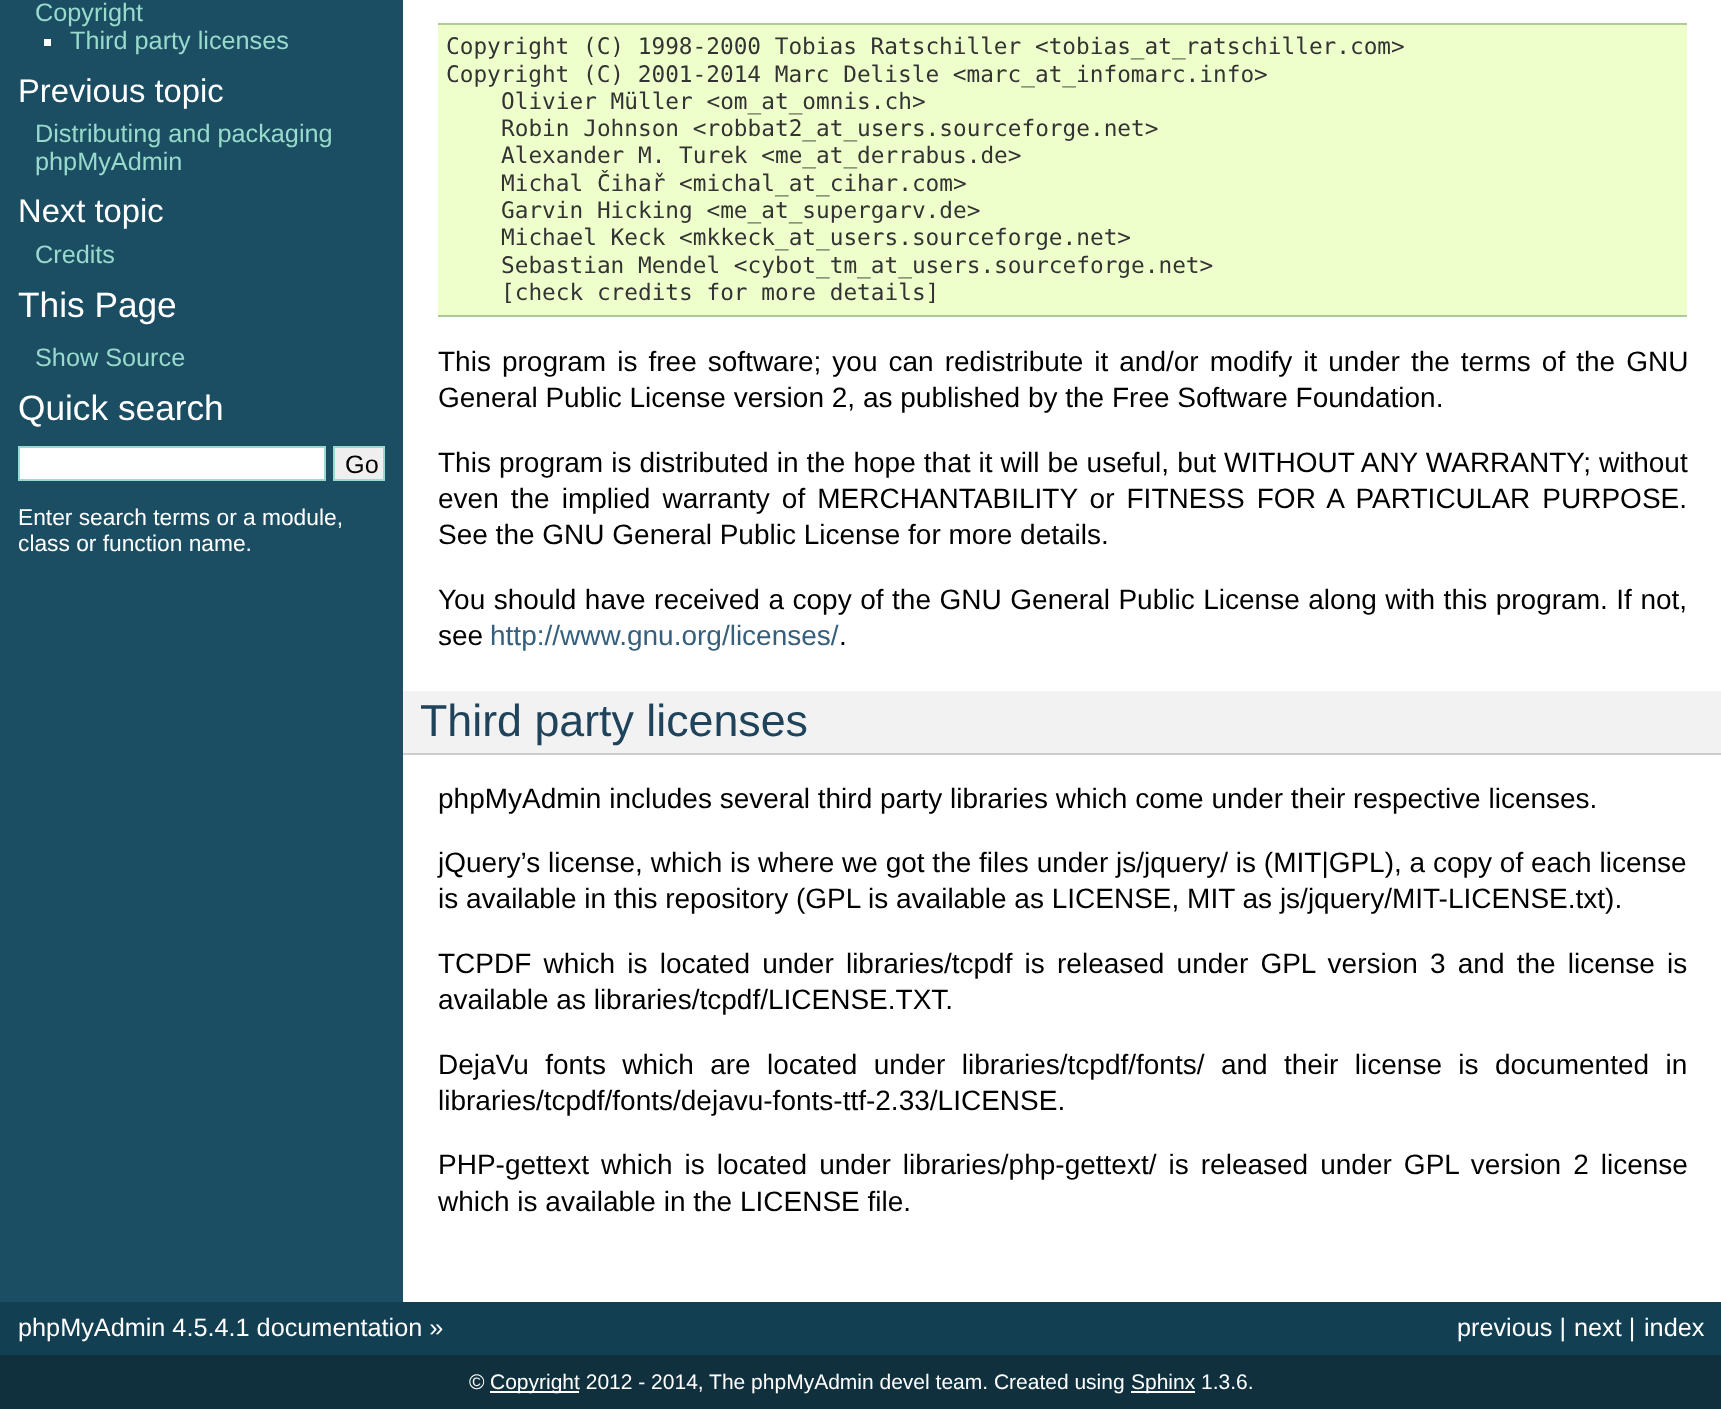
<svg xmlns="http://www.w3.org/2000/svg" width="1721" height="1409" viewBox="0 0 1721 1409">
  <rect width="100%" height="100%" fill="#11303d"/>
  <rect x="0" y="0" width="403" height="1302" fill="#1c4e63"/>
  <text x="35" y="21" font-family="Liberation Sans" font-size="25.25" fill="#98dbcc">Copyright</text>
  <rect x="44" y="39" width="7" height="7" fill="#ffffff"/>
  <text x="70" y="49" font-family="Liberation Sans" font-size="25.25" fill="#98dbcc">Third party licenses</text>
  <text x="18" y="102" font-family="Liberation Sans" font-size="32.75" fill="#ffffff">Previous topic</text>
  <text x="35" y="142" font-family="Liberation Sans" font-size="25.25" fill="#98dbcc">Distributing and packaging</text>
  <text x="35" y="170" font-family="Liberation Sans" font-size="25.25" fill="#98dbcc">phpMyAdmin</text>
  <text x="18" y="222" font-family="Liberation Sans" font-size="32.75" fill="#ffffff">Next topic</text>
  <text x="35" y="263" font-family="Liberation Sans" font-size="25.25" fill="#98dbcc">Credits</text>
  <text x="18" y="317" font-family="Liberation Sans" font-size="35.25" fill="#ffffff">This Page</text>
  <text x="35" y="366" font-family="Liberation Sans" font-size="25.25" fill="#98dbcc">Show Source</text>
  <text x="18" y="420" font-family="Liberation Sans" font-size="35.25" fill="#ffffff">Quick search</text>
  <rect x="19" y="447" width="306" height="33" fill="#ffffff" stroke="#98dbcc" stroke-width="2"/>
  <rect x="334" y="447" width="50" height="33" fill="#efefef" stroke="#98dbcc" stroke-width="2"/>
  <text x="345" y="473" font-family="Liberation Sans" font-size="25.25" fill="#000000">Go</text>
  <text x="18" y="525" font-family="Liberation Sans" font-size="22.75" fill="#ffffff">Enter search terms or a module,</text>
  <text x="18" y="551" font-family="Liberation Sans" font-size="22.75" fill="#ffffff">class or function name.</text>
  <rect x="403" y="0" width="1318" height="1302" fill="#ffffff"/>
  <rect x="438" y="25" width="1249" height="290" fill="#eeffcc"/>
  <rect x="438" y="23" width="1249" height="2" fill="#aacc99"/>
  <rect x="438" y="315" width="1249" height="2" fill="#aacc99"/>
  <text x="446" y="54" font-family="DejaVu Sans Mono" font-size="22.75" fill="#333333">Copyright (C) 1998-2000 Tobias Ratschiller &lt;tobias_at_ratschiller.com&gt;</text>
  <text x="446" y="82" font-family="DejaVu Sans Mono" font-size="22.75" fill="#333333">Copyright (C) 2001-2014 Marc Delisle &lt;marc_at_infomarc.info&gt;</text>
  <text x="501" y="109" font-family="DejaVu Sans Mono" font-size="22.75" fill="#333333">Olivier Müller &lt;om_at_omnis.ch&gt;</text>
  <text x="501" y="136" font-family="DejaVu Sans Mono" font-size="22.75" fill="#333333">Robin Johnson &lt;robbat2_at_users.sourceforge.net&gt;</text>
  <text x="501" y="163" font-family="DejaVu Sans Mono" font-size="22.75" fill="#333333">Alexander M. Turek &lt;me_at_derrabus.de&gt;</text>
  <text x="501" y="191" font-family="DejaVu Sans Mono" font-size="22.75" fill="#333333">Michal Čihař &lt;michal_at_cihar.com&gt;</text>
  <text x="501" y="218" font-family="DejaVu Sans Mono" font-size="22.75" fill="#333333">Garvin Hicking &lt;me_at_supergarv.de&gt;</text>
  <text x="501" y="245" font-family="DejaVu Sans Mono" font-size="22.75" fill="#333333">Michael Keck &lt;mkkeck_at_users.sourceforge.net&gt;</text>
  <text x="501" y="273" font-family="DejaVu Sans Mono" font-size="22.75" fill="#333333">Sebastian Mendel &lt;cybot_tm_at_users.sourceforge.net&gt;</text>
  <text x="501" y="300" font-family="DejaVu Sans Mono" font-size="22.75" fill="#333333">[check credits for more details]</text>
  <text x="438" y="371" word-spacing="3.25" font-family="Liberation Sans" font-size="28" fill="#000000">This program is free software; you can redistribute it and/or modify it under the terms of the GNU</text>
  <text x="438" y="407" font-family="Liberation Sans" font-size="28" fill="#000000">General Public License version 2, as published by the Free Software Foundation.</text>
  <text x="438" y="472" word-spacing="0.25" font-family="Liberation Sans" font-size="28" fill="#000000">This program is distributed in the hope that it will be useful, but WITHOUT ANY WARRANTY; without</text>
  <text x="438" y="508" word-spacing="4.25" font-family="Liberation Sans" font-size="28" fill="#000000">even the implied warranty of MERCHANTABILITY or FITNESS FOR A PARTICULAR PURPOSE.</text>
  <text x="438" y="544" font-family="Liberation Sans" font-size="28" fill="#000000">See the GNU General Public License for more details.</text>
  <text x="438" y="609" word-spacing="0.75" font-family="Liberation Sans" font-size="28" fill="#000000">You should have received a copy of the GNU General Public License along with this program. If not,</text>
  <text x="438" y="645" font-family="Liberation Sans" font-size="28" fill="#000000">see</text>
  <text x="490" y="645" font-family="Liberation Sans" font-size="28" fill="#355f7c">http://www.gnu.org/licenses/</text>
  <text x="839" y="645" font-family="Liberation Sans" font-size="28" fill="#000000">.</text>
  <rect x="403" y="691" width="1318" height="62" fill="#f2f2f2"/>
  <rect x="403" y="753" width="1318" height="2" fill="#cccccc"/>
  <text x="420" y="736" font-family="Liberation Sans" font-size="44.75" fill="#20435c">Third party licenses</text>
  <text x="438" y="808" font-family="Liberation Sans" font-size="28" fill="#000000">phpMyAdmin includes several third party libraries which come under their respective licenses.</text>
  <text x="438" y="872" font-family="Liberation Sans" font-size="28" fill="#000000">jQuery’s license, which is where we got the files under js/jquery/ is (MIT|GPL), a copy of each license</text>
  <text x="438" y="908" font-family="Liberation Sans" font-size="28" fill="#000000">is available in this repository (GPL is available as LICENSE, MIT as js/jquery/MIT-LICENSE.txt).</text>
  <text x="438" y="973" word-spacing="4.4" font-family="Liberation Sans" font-size="28" fill="#000000">TCPDF which is located under libraries/tcpdf is released under GPL version 3 and the license is</text>
  <text x="438" y="1009" font-family="Liberation Sans" font-size="28" fill="#000000">available as libraries/tcpdf/LICENSE.TXT.</text>
  <text x="438" y="1074" word-spacing="8.6" font-family="Liberation Sans" font-size="28" fill="#000000">DejaVu fonts which are located under libraries/tcpdf/fonts/ and their license is documented in</text>
  <text x="438" y="1110" font-family="Liberation Sans" font-size="28" fill="#000000">libraries/tcpdf/fonts/dejavu-fonts-ttf-2.33/LICENSE.</text>
  <text x="438" y="1174" word-spacing="4.25" font-family="Liberation Sans" font-size="28" fill="#000000">PHP-gettext which is located under libraries/php-gettext/ is released under GPL version 2 license</text>
  <text x="438" y="1211" font-family="Liberation Sans" font-size="28" fill="#000000">which is available in the LICENSE file.</text>
  <rect x="0" y="1302" width="1721" height="53" fill="#133f52"/>
  <text x="18" y="1336" font-family="Liberation Sans" font-size="25.25" fill="#ffffff">phpMyAdmin 4.5.4.1 documentation »</text>
  <text x="1457" y="1336" font-family="Liberation Sans" font-size="25.25" fill="#ffffff">previous |</text>
  <text x="1574" y="1336" font-family="Liberation Sans" font-size="25.25" fill="#ffffff">next |</text>
  <text x="1644" y="1336" font-family="Liberation Sans" font-size="25.25" fill="#ffffff">index</text>
  <text x="469" y="1389" font-family="Liberation Sans" font-size="21" fill="#ffffff">©</text>
  <rect x="490" y="1391" width="89" height="2" fill="#ffffff"/>
  <text x="490" y="1389" font-family="Liberation Sans" font-size="21" fill="#ffffff">Copyright 2012 - 2014, The phpMyAdmin devel team. Created using</text>
  <rect x="1131" y="1391" width="64" height="2" fill="#ffffff"/>
  <text x="1131" y="1389" font-family="Liberation Sans" font-size="21" fill="#ffffff">Sphinx 1.3.6.</text>
</svg>
